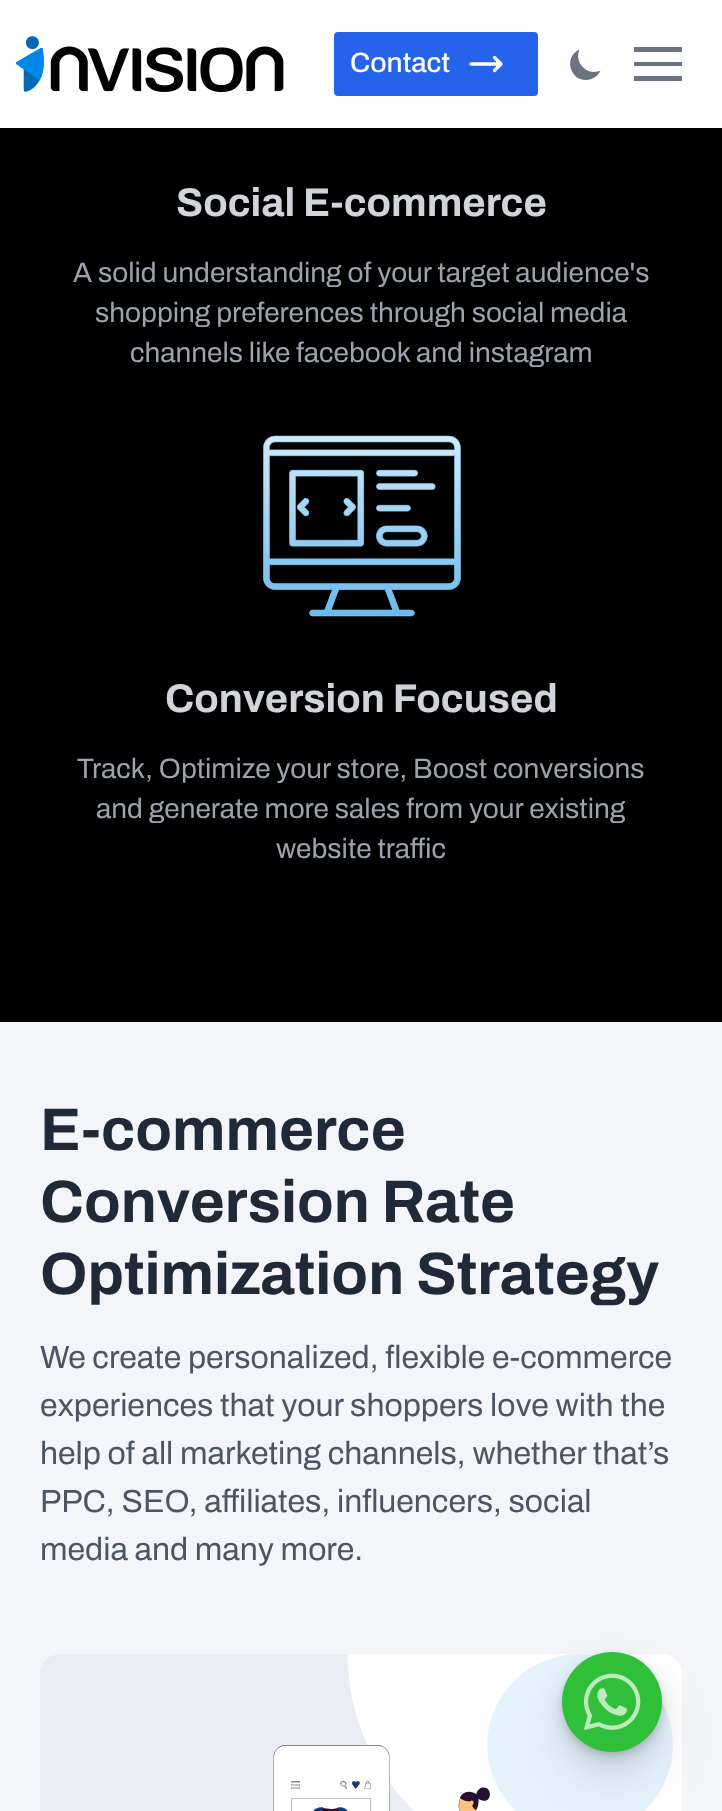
<svg xmlns="http://www.w3.org/2000/svg" xmlns:xlink="http://www.w3.org/1999/xlink" width="722" height="1811" viewBox="0 0 722 1811">
<style>
.cls-1{font:500 28px Archivo;fill:#ffffff}
.cls-2{font:bold 40px Archivo;fill:#d1d5db}
.cls-3{font:28px Archivo;fill:#9ca3af}
.cls-4{font:bold 60px Archivo;fill:#1f2937}
.cls-5{font:32px Archivo;fill:#4b5563}
</style>
<rect width="100%" height="100%" fill="#f3f5f8"/>
<rect fill="#ffffff" x="0" y="0" width="722" height="128"/>
<image xlink:href="image0.png" x="16" y="36" width="268" height="56"/>
<rect fill="#2563eb" x="334" y="32" width="204" height="64" rx="4"/>
<path fill="none" stroke="#ffffff" stroke-width="3.3" stroke-linecap="round" stroke-linejoin="round" d="M494.5 57.5L501 64M501 64L494.5 70.5M501 64H471"/>
<path fill="#6b7280" d="M600.5 70.5C587.5 76.5 573.5 62.5 579.5 49.5C561 58 572.5 86 591.5 79C595.5 77.5 599 74.5 600.5 70.5Z"/>
<path fill="#6b7280" d="M634 47H682V52H634ZM634 62H682V66H634ZM634 76H682V81H634Z"/>
<rect fill="#000000" x="0" y="128" width="722" height="894"/>
<image xlink:href="image1.png" x="263" y="435" width="198" height="182"/>
<image xlink:href="image2.png" x="40" y="1654" width="642" height="157"/>
<rect fill="#000000" fill-opacity="0.07" filter="blur(32px)" x="562" y="1684" width="100" height="100" rx="50"/>
<rect fill="#000000" fill-opacity="0.07" filter="blur(16px)" x="562" y="1668" width="100" height="100" rx="50"/>
<rect fill="#000000" fill-opacity="0.07" filter="blur(8px)" x="562" y="1660" width="100" height="100" rx="50"/>
<rect fill="#000000" fill-opacity="0.07" filter="blur(4px)" x="562" y="1656" width="100" height="100" rx="50"/>
<rect fill="#000000" fill-opacity="0.07" filter="blur(2px)" x="562" y="1654" width="100" height="100" rx="50"/>
<circle fill="#30bf39" cx="612" cy="1702" r="50"/>
<image xlink:href="image3.png" x="583" y="1673" width="58" height="57"/>
<text class="cls-1" x="350" y="72">Contact</text>
<text class="cls-2" x="176" y="216">Social E-commerce</text>
<text class="cls-3" x="73" y="282">A solid understanding of your target audience's</text>
<text class="cls-3" x="95" y="322">shopping preferences through social media</text>
<text class="cls-3" x="130" y="362">channels like facebook and instagram</text>
<text class="cls-2" x="165" y="712">Conversion Focused</text>
<text class="cls-3" x="77" y="778">Track, Optimize your store, Boost conversions</text>
<text class="cls-3" x="96" y="818">and generate more sales from your existing</text>
<text class="cls-3" x="276" y="858">website traffic</text>
<text class="cls-4"><tspan x="40" y="1150">E-commerce</tspan><tspan x="40" y="1222">Conversion Rate</tspan><tspan x="40" y="1294">Optimization Strategy</tspan></text>
<text class="cls-5"><tspan x="40" y="1368">We create personalized, flexible e-commerce</tspan><tspan x="40" y="1416">experiences that your shoppers love with the</tspan><tspan x="40" y="1464">help of all marketing channels, whether that’s</tspan><tspan x="40" y="1512">PPC, SEO, affiliates, influencers, social</tspan><tspan x="40" y="1560">media and many more.</tspan></text>
</svg>
